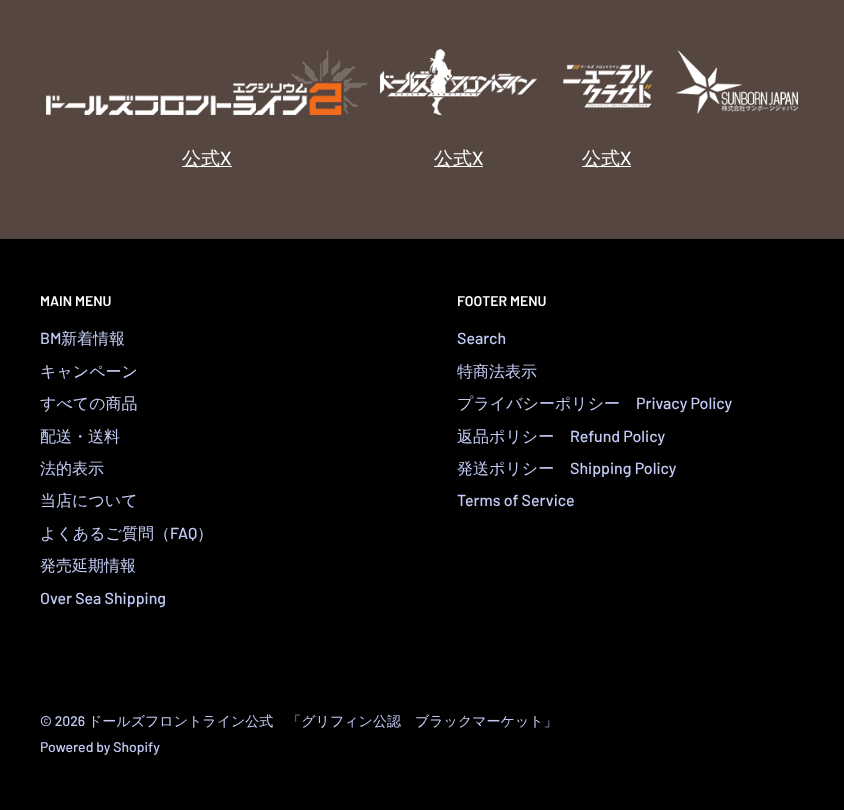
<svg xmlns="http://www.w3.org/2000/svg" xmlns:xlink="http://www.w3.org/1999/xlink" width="844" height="810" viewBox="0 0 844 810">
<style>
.cls-1{font:500 19px WenQuanYi Zen Hei;fill:#ffffff}
.cls-2{font:500 19px Barlow;fill:#ffffff}
.cls-3{font:600 14px Barlow;fill:#ffffff}
.cls-4{font:500 16px Barlow;fill:#c3cbf5}
.cls-5{font:500 16px WenQuanYi Zen Hei;fill:#c3cbf5}
.cls-6{font:500 14px Barlow;fill:#c3cbf5}
.cls-7{font:500 14px WenQuanYi Zen Hei;fill:#c3cbf5}
</style>
<rect width="100%" height="100%" fill="#55463f"/>
<image xlink:href="image0.png" x="46" y="50" width="322" height="65"/>
<image xlink:href="image1.png" x="380" y="49" width="157" height="66"/>
<image xlink:href="image2.png" x="563" y="64" width="91" height="44"/>
<image xlink:href="image3.png" x="676" y="50" width="122" height="64"/>
<rect fill="#ffffff" x="182" y="166" width="50" height="1"/>
<rect fill="#ffffff" x="434" y="166" width="49" height="1"/>
<rect fill="#ffffff" x="582" y="166" width="49" height="1"/>
<rect fill="#000000" x="0" y="239" width="844" height="571"/>
<text class="cls-1" x="182" y="165">公式</text>
<text class="cls-2" x="220" y="165">X</text>
<text class="cls-1" x="434" y="165">公式</text>
<text class="cls-2" x="472" y="165">X</text>
<text class="cls-1" x="582" y="165">公式</text>
<text class="cls-2" x="620" y="165">X</text>
<text class="cls-3" x="40" y="306">MAIN MENU</text>
<text class="cls-4" x="40" y="344">BM</text>
<text class="cls-5" x="61" y="344">新着情報</text>
<text class="cls-5" x="40" y="377">キャンペーン</text>
<text class="cls-5" x="40" y="409">すべての商品</text>
<text class="cls-5" x="40" y="442">配送・送料</text>
<text class="cls-5" x="40" y="474">法的表示</text>
<text class="cls-5" x="40" y="506">当店について</text>
<text class="cls-5" x="40" y="539">よくあるご質問（</text>
<text class="cls-4" x="170" y="539">FAQ</text>
<text class="cls-5" x="197" y="539">）</text>
<text class="cls-5" x="40" y="571">発売延期情報</text>
<text class="cls-4" x="40" y="604">Over Sea Shipping</text>
<text class="cls-3" x="457" y="306">FOOTER MENU</text>
<text class="cls-4" x="457" y="344">Search</text>
<text class="cls-5" x="457" y="377">特商法表示</text>
<text class="cls-5" x="457" y="409">プライバシーポリシー</text>
<text class="cls-4" x="636" y="409">Privacy Policy</text>
<text class="cls-5" x="457" y="442">返品ポリシー</text>
<text class="cls-4" x="570" y="442">Refund Policy</text>
<text class="cls-5" x="457" y="474">発送ポリシー</text>
<text class="cls-4" x="570" y="474">Shipping Policy</text>
<text class="cls-4" x="457" y="506">Terms of Service</text>
<text class="cls-6" x="40" y="726">© 2026</text>
<text class="cls-7" x="88" y="726">ドールズフロントライン公式　「グリフィン公認　ブラックマーケット」</text>
<text class="cls-6" x="40" y="752">Powered by Shopify</text>
</svg>
